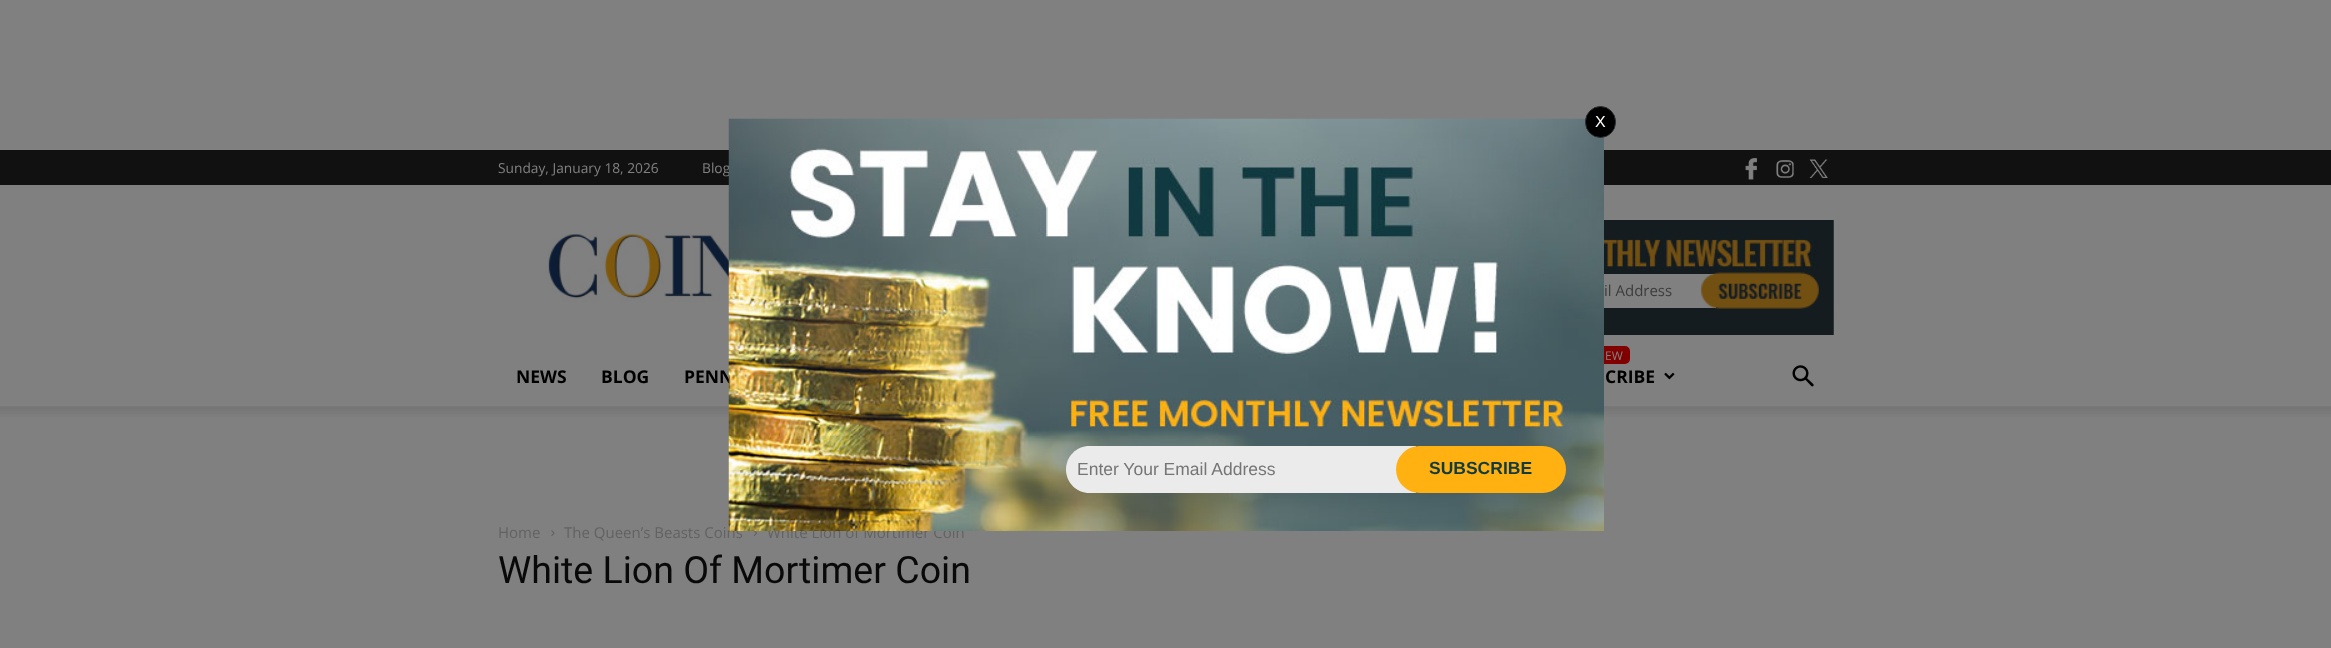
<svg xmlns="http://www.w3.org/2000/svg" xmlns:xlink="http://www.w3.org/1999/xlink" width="2331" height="648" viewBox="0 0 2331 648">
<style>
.cls-1{font:13.75px Open Sans;fill:#808080}
.cls-2{font:15px Open Sans;fill:#3b3b3b}
.cls-3{font:bold 17.5px Open Sans;fill:#000000}
.cls-4{font:12px Open Sans;fill:#808080}
.cls-5{font:15px Open Sans;fill:#626262}
.cls-6{font:16px Liberation Sans;fill:#ffffff}
.cls-7{font:bold 17.5px Liberation Sans;fill:#113a41}
.cls-8{font:17.5px Liberation Sans;fill:#757575}
.cls-9{font:37.5px Roboto;fill:#090909}
</style>
<rect width="100%" height="100%" fill="#808080"/>
<rect fill="#111111" x="0" y="150" width="2331" height="35"/>
<image xlink:href="image1.png" x="1745" y="158" width="12" height="22"/>
<image xlink:href="image2.png" x="1776" y="160" width="18" height="18"/>
<image xlink:href="image3.png" x="1809" y="159" width="19" height="19"/>
<image xlink:href="image4.png" x="548" y="234" width="181" height="86"/>
<image xlink:href="image5.png" x="1604" y="220" width="230" height="115"/>
<rect fill="#808080" x="1604" y="274" width="112" height="34"/>
<image xlink:href="image6.png" x="1700" y="272" width="119" height="37"/>
<rect fill="#800000" x="1589" y="346" width="41" height="18" rx="5"/>
<image xlink:href="image7.png" x="1664" y="372" width="11" height="8"/>
<image xlink:href="image8.png" x="1792" y="365" width="22" height="22"/>
<image xlink:href="image9.png" x="0" y="406" width="2331" height="11"/>
<image xlink:href="image10.png" x="551" y="530" width="4" height="6"/>
<image xlink:href="image11.png" x="753" y="531" width="4" height="5"/>
<text class="cls-1" x="498" y="173">Sunday, January 18, 2026</text>
<text class="cls-1" x="702" y="173">Blog</text>
<text class="cls-2" x="1604" y="296">il Address</text>
<text class="cls-3" x="516" y="383">NEWS</text>
<text class="cls-3" x="601" y="383">BLOG</text>
<text class="cls-3" x="684" y="383">PENN</text>
<text class="cls-4" x="1605" y="360">EW</text>
<text class="cls-3" x="1605" y="383">CRIBE</text>
<text class="cls-5" x="498" y="538">Home</text>
<text class="cls-5" x="564" y="538">The Queen’s Beasts Coins</text>
<text class="cls-5" x="767" y="538">White Lion of Mortimer Coin</text>
<image xlink:href="image0.png" x="728" y="118" width="876" height="413"/>
<rect fill="#000000" stroke="#2b2f32" x="1585.5" y="106.5" width="30" height="31" rx="15"/>
<text class="cls-6" x="1595" y="127">X</text>
<path fill="#ebebeb" d="M1089.5 446H1416V493H1089.5C1076.5 493 1066 482.5 1066 469.5C1066 456.5 1076.5 446 1089.5 446Z"/>
<rect fill="#ffb111" x="1396" y="446" width="170" height="47" rx="23.5"/>
<text class="cls-7" x="1429" y="474">SUBSCRIBE</text>
<text class="cls-8" x="1077" y="475">Enter Your Email Address</text>
<text class="cls-9" x="498" y="583">White Lion Of Mortimer Coin</text>
</svg>
